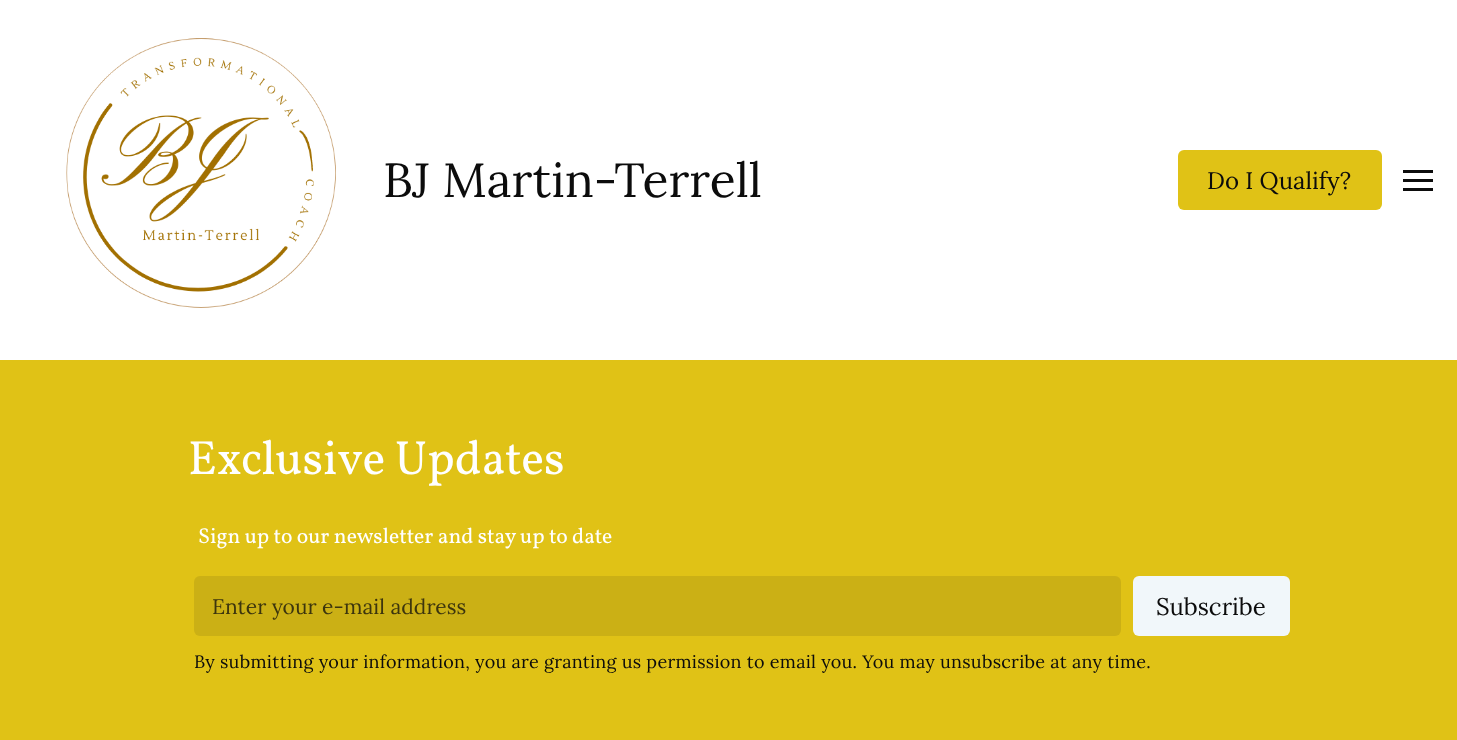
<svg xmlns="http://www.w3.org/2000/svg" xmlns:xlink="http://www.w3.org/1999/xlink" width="1457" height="740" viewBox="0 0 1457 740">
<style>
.cls-1{font:48px Lora;fill:#0c0c0c}
.cls-2{font:24px Lora;fill:#0c0c0c}
.cls-3{font:48px Vollkorn;fill:#ffffff}
.cls-4{font:21.6px Vollkorn;fill:#ffffff}
.cls-5{font:21px Lora;fill:#3c350e}
.cls-6{font:18px Lora;letter-spacing:0.27px;fill:#0c0c0c}
</style>
<rect width="100%" height="100%" fill="#ffffff"/>
<image xlink:href="image0.png" x="66" y="38" width="270" height="270"/>
<rect fill="#e0c216" x="1178" y="150" width="204" height="60" rx="6"/>
<rect fill="#0c0c0c" x="1403" y="170" width="30" height="3"/>
<rect fill="#0c0c0c" x="1403" y="179" width="30" height="3"/>
<rect fill="#0c0c0c" x="1403" y="188" width="30" height="3"/>
<rect fill="#e0c216" x="0" y="360" width="1457" height="380"/>
<rect fill="#cbb015" x="194" y="576" width="927" height="60" rx="6"/>
<rect fill="#f1f7fa" x="1133" y="576" width="157" height="60" rx="6"/>
<text class="cls-1" x="383" y="197">BJ Martin-Terrell</text>
<text class="cls-2" x="1207" y="189">Do I Qualify?</text>
<text class="cls-3" x="188" y="474">Exclusive Updates</text>
<text class="cls-4" x="198" y="543">Sign up to our newsletter and stay up to date</text>
<text class="cls-5" x="212" y="614">Enter your e-mail address</text>
<text class="cls-2" x="1156" y="615">Subscribe</text>
<text class="cls-6" x="194" y="668">By submitting your information, you are granting us permission to email you. You may unsubscribe at any time.</text>
</svg>
